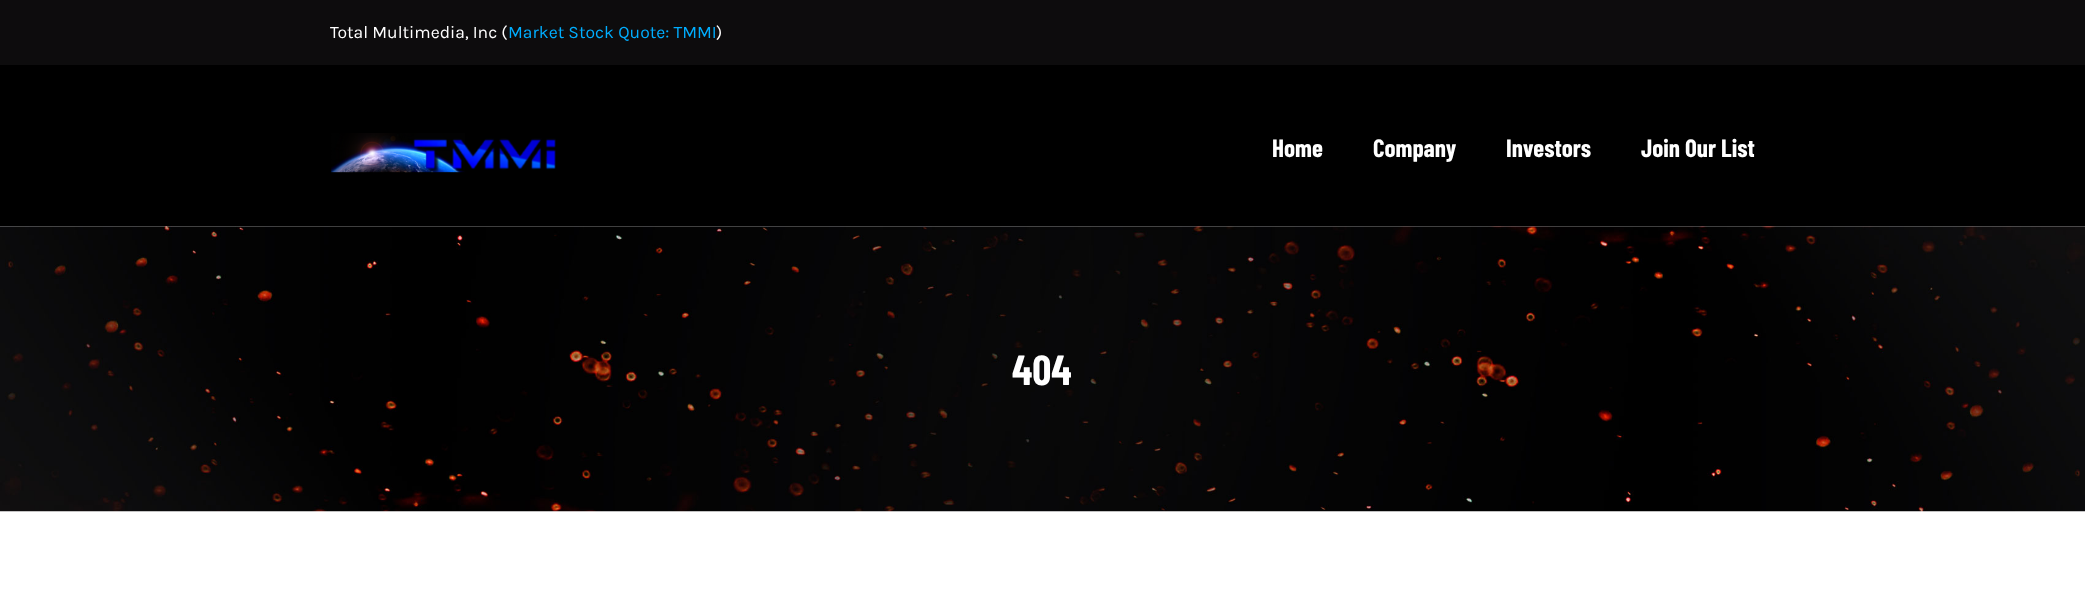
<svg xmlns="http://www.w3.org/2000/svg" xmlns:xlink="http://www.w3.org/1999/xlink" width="2085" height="594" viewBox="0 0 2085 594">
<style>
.cls-1{font:17.5px Karla;fill:#ffffff}
.cls-2{font:17.5px Karla;fill:#00aeff}
.cls-3{font:bold 25px Barlow Condensed;fill:#ffffff}
.cls-4{font:bold 42px Barlow Condensed;fill:#ffffff}
</style>
<rect width="100%" height="100%" fill="#ffffff"/>
<rect fill="#0d0c0d" x="0" y="0" width="2085" height="65"/>
<rect fill="#000000" x="0" y="65" width="2085" height="161"/>
<image xlink:href="image0.png" x="331" y="133" width="225" height="40"/>
<image xlink:href="image1.png" x="0" y="226" width="2085" height="286"/>
<text class="cls-1" x="330" y="38">Total Multimedia, Inc (</text>
<text class="cls-2" x="508" y="38">Market Stock Quote: TMMI</text>
<text class="cls-1" x="716" y="38">)</text>
<text class="cls-3" x="1272" y="157">Home</text>
<text class="cls-3" x="1373" y="157">Company</text>
<text class="cls-3" x="1506" y="157">Investors</text>
<text class="cls-3" x="1641" y="157">Join Our List</text>
<text class="cls-4" x="1012" y="385">404</text>
</svg>
